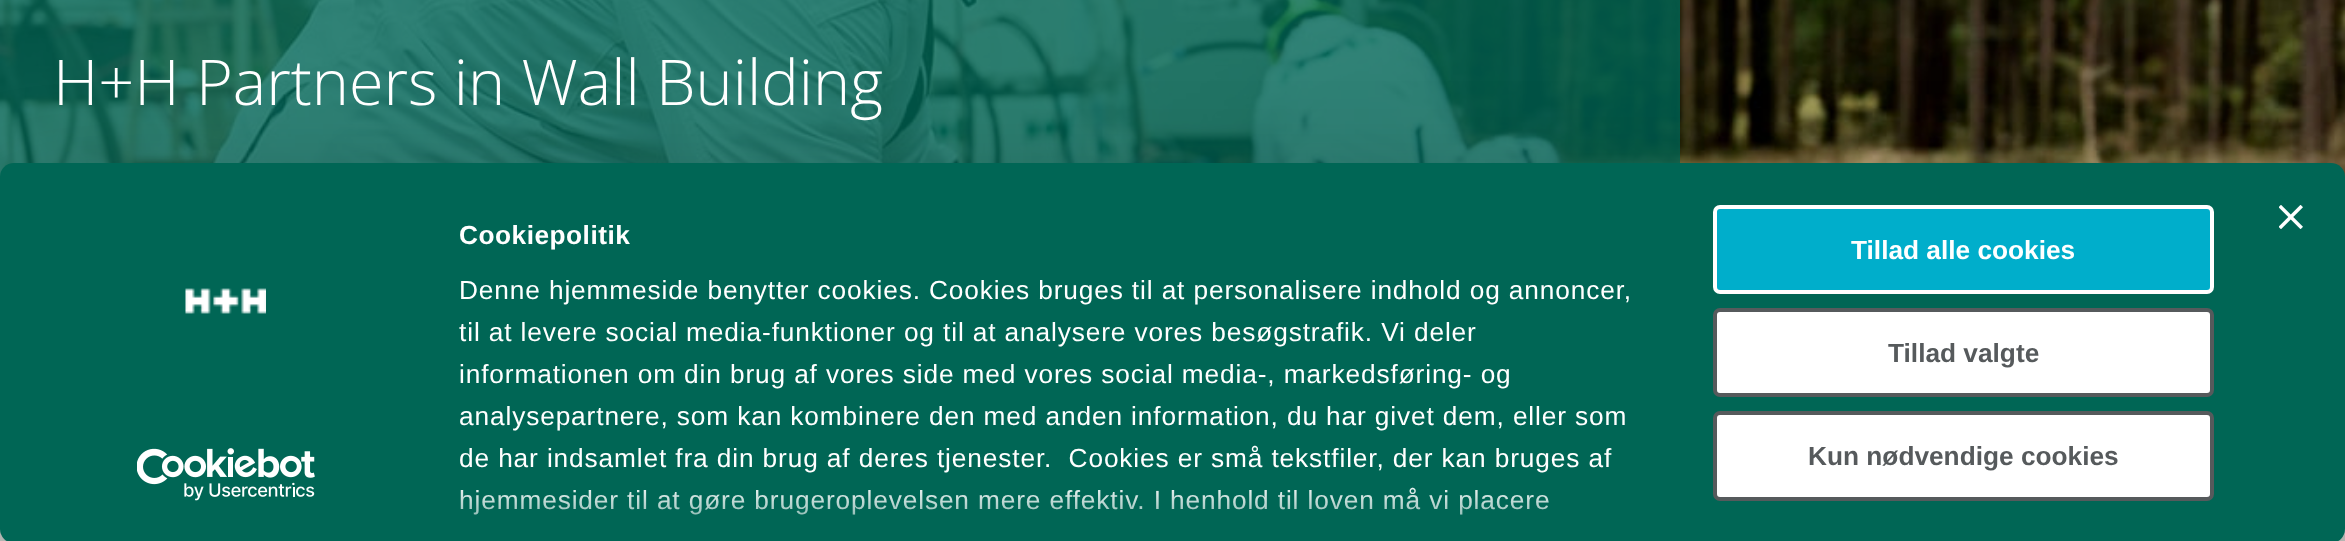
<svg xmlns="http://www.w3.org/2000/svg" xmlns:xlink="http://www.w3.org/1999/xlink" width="2345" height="541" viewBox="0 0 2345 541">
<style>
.cls-1{font:300 63px Open Sans;fill:#ffffff}
.cls-2{font:bold 26.25px Liberation Sans;letter-spacing:0.5px;fill:#ffffff}
.cls-3{font:26.25px Liberation Sans;letter-spacing:0.88px;fill:#ffffff}
.cls-4{font:bold 26.25px Liberation Sans;fill:#ffffff}
.cls-5{font:bold 26.25px Liberation Sans;fill:#565a5c}
</style>
<defs>
<linearGradient id="g1" gradientUnits="userSpaceOnUse" x1="1044" y1="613" x2="1044" y2="481"><stop offset="0" stop-color="#006655"/><stop offset="0.5" stop-color="#006655" stop-opacity="0.8"/><stop offset="1" stop-color="#006655" stop-opacity="0"/></linearGradient>
</defs>
<rect width="100%" height="100%" fill="#cdcfcb"/>
<image xlink:href="image0.png" x="0" y="0" width="2345" height="177"/>
<rect fill="#006656" fill-opacity="0.8" x="0" y="0" width="1680" height="177"/>
<rect fill="#000000" fill-opacity="0.3" filter="blur(61px)" x="0" y="215" width="2345" height="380" rx="14"/>
<rect fill="#006655" x="0" y="163" width="2345" height="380" rx="14"/>
<image xlink:href="image1.png" x="2279" y="205" width="24" height="24"/>
<image xlink:href="image2.png" x="185" y="288" width="81" height="26"/>
<image xlink:href="image3.png" x="137" y="448" width="178" height="53"/>
<rect fill="#00aecb" stroke="#ffffff" stroke-width="4" x="1715" y="207" width="497" height="85" rx="5"/>
<rect fill="#ffffff" stroke="#565a5c" stroke-width="4" x="1715" y="310" width="497" height="85" rx="5"/>
<rect fill="#ffffff" stroke="#565a5c" stroke-width="4" x="1715" y="413" width="497" height="86" rx="5"/>
<text class="cls-1" x="53" y="105">H+H Partners in Wall Building</text>
<text class="cls-2" x="459" y="244">Cookiepolitik</text>
<text class="cls-3" xml:space="preserve"><tspan x="459" y="299">Denne hjemmeside benytter cookies. Cookies bruges til at personalisere indhold og annoncer,</tspan><tspan x="459" y="341">til at levere social media-funktioner og til at analysere vores besøgstrafik. Vi deler</tspan><tspan x="459" y="383">informationen om din brug af vores side med vores social media-, markedsføring- og</tspan><tspan x="459" y="425">analysepartnere, som kan kombinere den med anden information, du har givet dem, eller som</tspan><tspan x="459" y="467">de har indsamlet fra din brug af deres tjenester.  Cookies er små tekstfiler, der kan bruges af</tspan><tspan x="459" y="509">hjemmesider til at gøre brugeroplevelsen mere effektiv. I henhold til loven må vi placere</tspan></text>
<rect fill="url(#g1)" x="460" y="488" width="1088" height="27"/>
<text class="cls-4" x="1851" y="259">Tillad alle cookies</text>
<text class="cls-5" x="1888" y="362">Tillad valgte</text>
<text class="cls-5" x="1808" y="465">Kun nødvendige cookies</text>
</svg>
